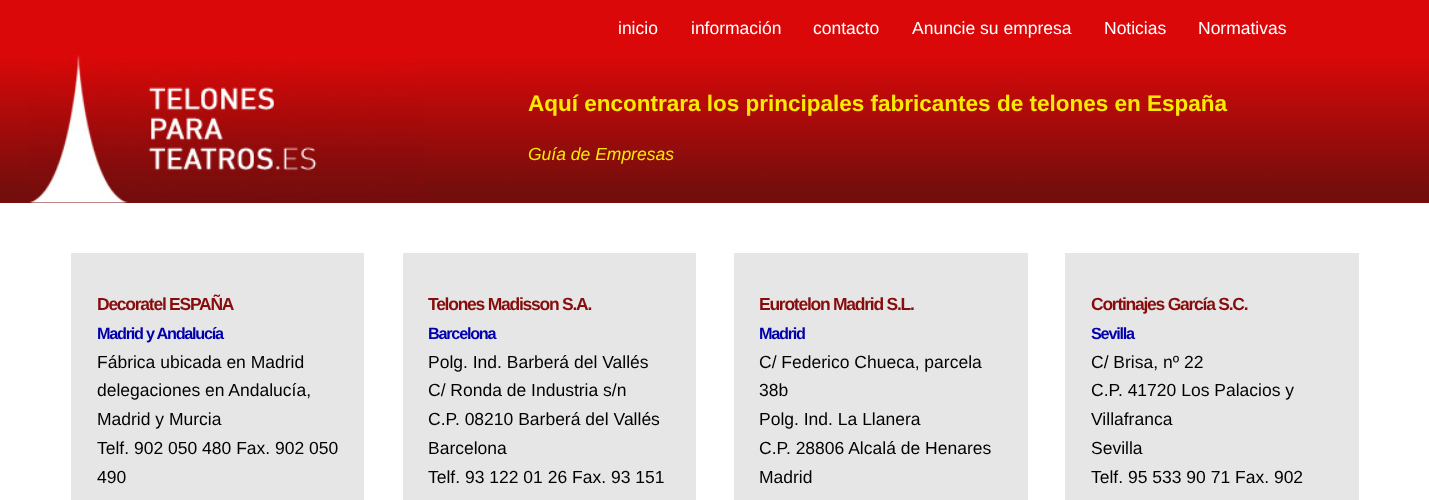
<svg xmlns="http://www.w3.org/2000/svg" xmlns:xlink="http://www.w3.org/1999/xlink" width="1429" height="500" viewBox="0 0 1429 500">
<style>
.cls-1{font:17.5px Liberation Sans;fill:#ffffff}
.cls-2{font:bold 22.5px Liberation Sans;fill:#f8ea02}
.cls-3{font:italic 17.5px Liberation Sans;fill:#f8ea02}
.cls-4{font:bold 17.5px Liberation Sans;letter-spacing:-1.25px;fill:#860d0c}
.cls-5{font:bold 16.25px Liberation Sans;letter-spacing:-1.25px;fill:#0000ad}
.cls-6{font:17.5px Liberation Sans;fill:#000000}
</style>
<defs>
<linearGradient id="g1" gradientUnits="userSpaceOnUse" x1="715" y1="55" x2="715" y2="203"><stop offset="0" stop-color="#da0809"/><stop offset="0.91" stop-color="#740e0c"/></linearGradient>
</defs>
<rect width="100%" height="100%" fill="#da0809"/>
<rect fill="#ffffff" x="0" y="203" width="1429" height="297"/>
<rect fill="url(#g1)" x="0" y="58" width="1429" height="145"/>
<image xlink:href="image0.png" x="29" y="55" width="394" height="148"/>
<rect fill="#e7e6e6" x="71" y="253" width="293" height="247"/>
<rect fill="#e7e6e6" x="403" y="253" width="293" height="247"/>
<rect fill="#e7e6e6" x="734" y="253" width="294" height="247"/>
<rect fill="#e7e6e6" x="1065" y="253" width="294" height="247"/>
<text class="cls-1" x="618" y="34">inicio</text>
<text class="cls-1" x="691" y="34">información</text>
<text class="cls-1" x="813" y="34">contacto</text>
<text class="cls-1" x="912" y="34">Anuncie su empresa</text>
<text class="cls-1" x="1104" y="34">Noticias</text>
<text class="cls-1" x="1198" y="34">Normativas</text>
<text class="cls-2" x="528" y="111">Aquí encontrara los principales fabricantes de telones en España</text>
<text class="cls-3" x="528" y="160">Guía de Empresas</text>
<text class="cls-4" x="97" y="310">Decoratel ESPAÑA</text>
<text class="cls-5" x="97" y="339">Madrid y Andalucía</text>
<text class="cls-6"><tspan x="97" y="368">Fábrica ubicada en Madrid</tspan><tspan x="97" y="396">delegaciones en Andalucía,</tspan><tspan x="97" y="425">Madrid y Murcia</tspan><tspan x="97" y="454">Telf. 902 050 480 Fax. 902 050</tspan><tspan x="97" y="483">490</tspan></text>
<text class="cls-4" x="428" y="310">Telones Madisson S.A.</text>
<text class="cls-5" x="428" y="339">Barcelona</text>
<text class="cls-6"><tspan x="428" y="368">Polg. Ind. Barberá del Vallés</tspan><tspan x="428" y="396">C/ Ronda de Industria s/n</tspan><tspan x="428" y="425">C.P. 08210 Barberá del Vallés</tspan><tspan x="428" y="454">Barcelona</tspan><tspan x="428" y="483">Telf. 93 122 01 26 Fax. 93 151</tspan></text>
<text class="cls-4" x="759" y="310">Eurotelon Madrid S.L.</text>
<text class="cls-5" x="759" y="339">Madrid</text>
<text class="cls-6"><tspan x="759" y="368">C/ Federico Chueca, parcela</tspan><tspan x="759" y="396">38b</tspan><tspan x="759" y="425">Polg. Ind. La Llanera</tspan><tspan x="759" y="454">C.P. 28806 Alcalá de Henares</tspan><tspan x="759" y="483">Madrid</tspan></text>
<text class="cls-4" x="1091" y="310">Cortinajes García S.C.</text>
<text class="cls-5" x="1091" y="339">Sevilla</text>
<text class="cls-6"><tspan x="1091" y="368">C/ Brisa, nº 22</tspan><tspan x="1091" y="396">C.P. 41720 Los Palacios y</tspan><tspan x="1091" y="425">Villafranca</tspan><tspan x="1091" y="454">Sevilla</tspan><tspan x="1091" y="483">Telf. 95 533 90 71 Fax. 902</tspan></text>
</svg>
